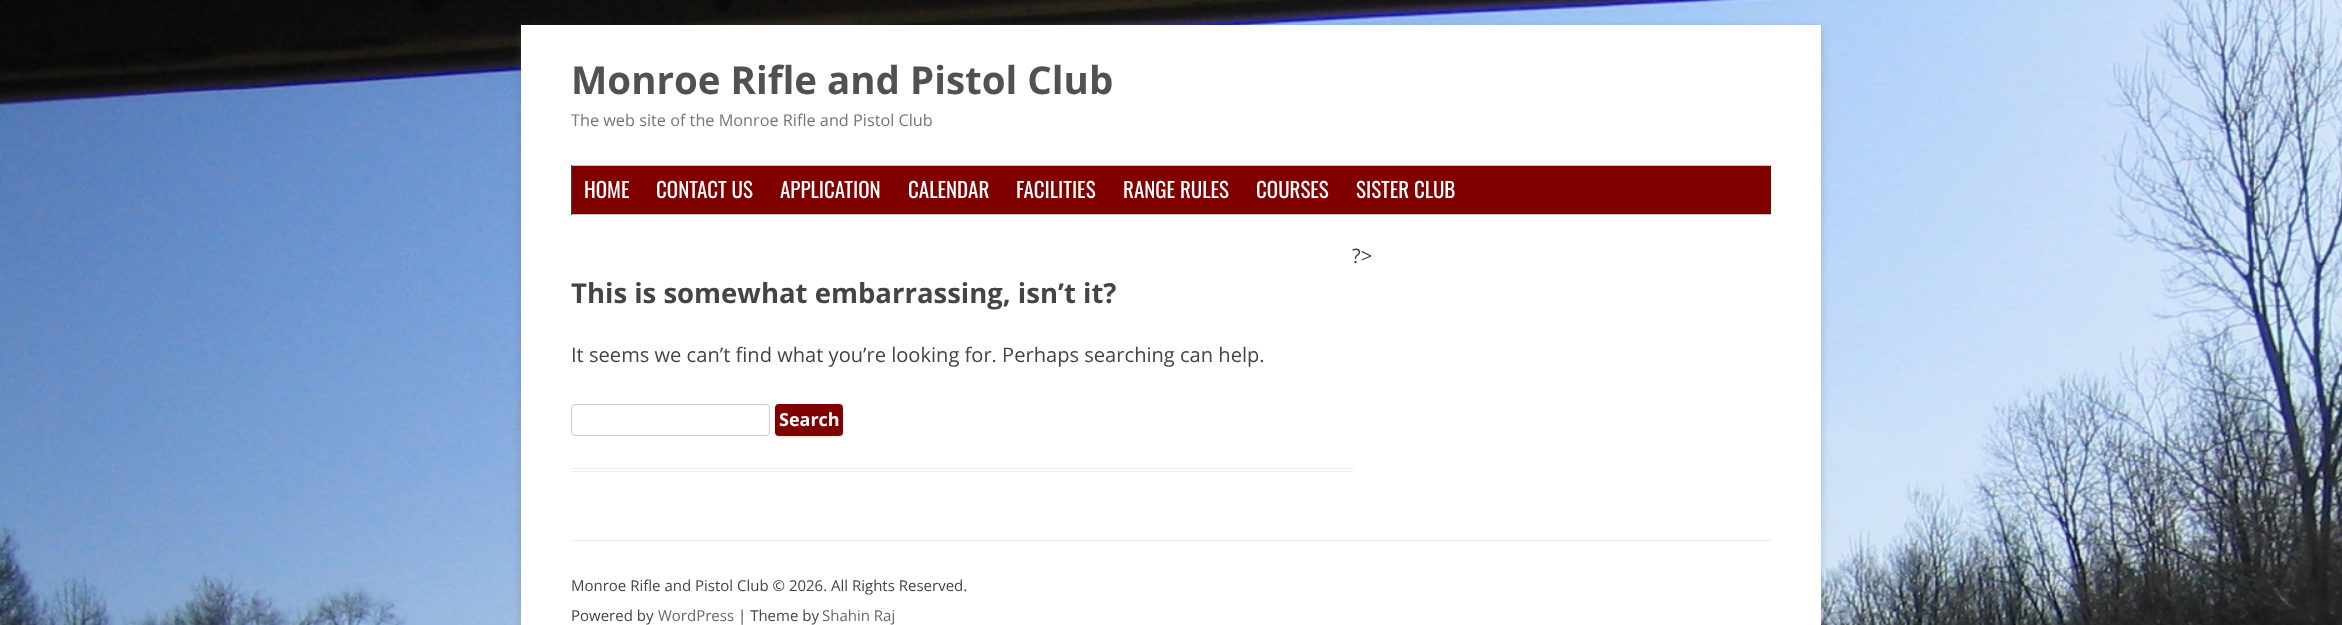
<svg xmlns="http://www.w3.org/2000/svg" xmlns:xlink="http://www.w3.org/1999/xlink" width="2342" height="625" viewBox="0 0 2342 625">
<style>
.cls-1{font:bold 38.5px Open Sans;fill:#515151}
.cls-2{font:16.25px Open Sans;fill:#757575}
.cls-3{font:21px Oswald;fill:#ffffff}
.cls-4{font:20.1px Open Sans;fill:#444444}
.cls-5{font:bold 27.5px Open Sans;fill:#444444}
.cls-6{font:bold 18px Open Sans;fill:#ffffff}
.cls-7{font:15px Open Sans;fill:#444444}
.cls-8{font:15px Open Sans;fill:#686868}
</style>
<rect width="100%" height="100%" fill="#ffffff"/>
<image xlink:href="image0.png" x="0" y="0" width="2342" height="625"/>
<rect fill="#646464" fill-opacity="0.3" filter="blur(4px)" x="521" y="28" width="1300" height="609"/>
<rect fill="#ffffff" x="521" y="25" width="1300" height="600"/>
<rect fill="#800000" x="572" y="166" width="1199" height="48"/>
<rect fill="#c0c0c0" x="571" y="165" width="1200" height="1"/>
<rect fill="#c0c0c0" x="571" y="214" width="1200" height="1"/>
<rect fill="#444444" x="571" y="165" width="1" height="50"/>
<rect fill="#ededed" x="571" y="468" width="782" height="1"/>
<rect fill="#ededed" x="571" y="471" width="782" height="1"/>
<rect fill="none" stroke="#cccccc" x="571.5" y="404.5" width="198" height="31" rx="3.5"/>
<rect fill="#404040" fill-opacity="0.1" filter="blur(1px)" x="775" y="405" width="68" height="33" rx="4"/>
<rect fill="#800000" x="775" y="404" width="68" height="32" rx="4"/>
<rect fill="#ededed" x="571" y="540" width="1200" height="1"/>
<text class="cls-1" x="571" y="94">Monroe Rifle and Pistol Club</text>
<text class="cls-2" x="571" y="126">The web site of the Monroe Rifle and Pistol Club</text>
<text class="cls-3" x="584" y="198">HOME</text>
<text class="cls-3" x="656" y="198">CONTACT US</text>
<text class="cls-3" x="780" y="198">APPLICATION</text>
<text class="cls-3" x="908" y="198">CALENDAR</text>
<text class="cls-3" x="1016" y="198">FACILITIES</text>
<text class="cls-3" x="1123" y="198">RANGE RULES</text>
<text class="cls-3" x="1256" y="198">COURSES</text>
<text class="cls-3" x="1356" y="198">SISTER CLUB</text>
<text class="cls-4" x="1352" y="263">?&gt;</text>
<text class="cls-5" x="571" y="303">This is somewhat embarrassing, isn’t it?</text>
<text class="cls-4" x="571" y="362">It seems we can’t find what you’re looking for. Perhaps searching can help.</text>
<text class="cls-6" x="779" y="426">Search</text>
<text class="cls-7" x="571" y="591">Monroe Rifle and Pistol Club © 2026. All Rights Reserved.</text>
<text class="cls-7" x="571" y="621">Powered by</text>
<text class="cls-8" x="658" y="621">WordPress</text>
<text class="cls-7" x="738" y="621">| Theme by</text>
<text class="cls-8" x="822" y="621">Shahin Raj</text>
</svg>
